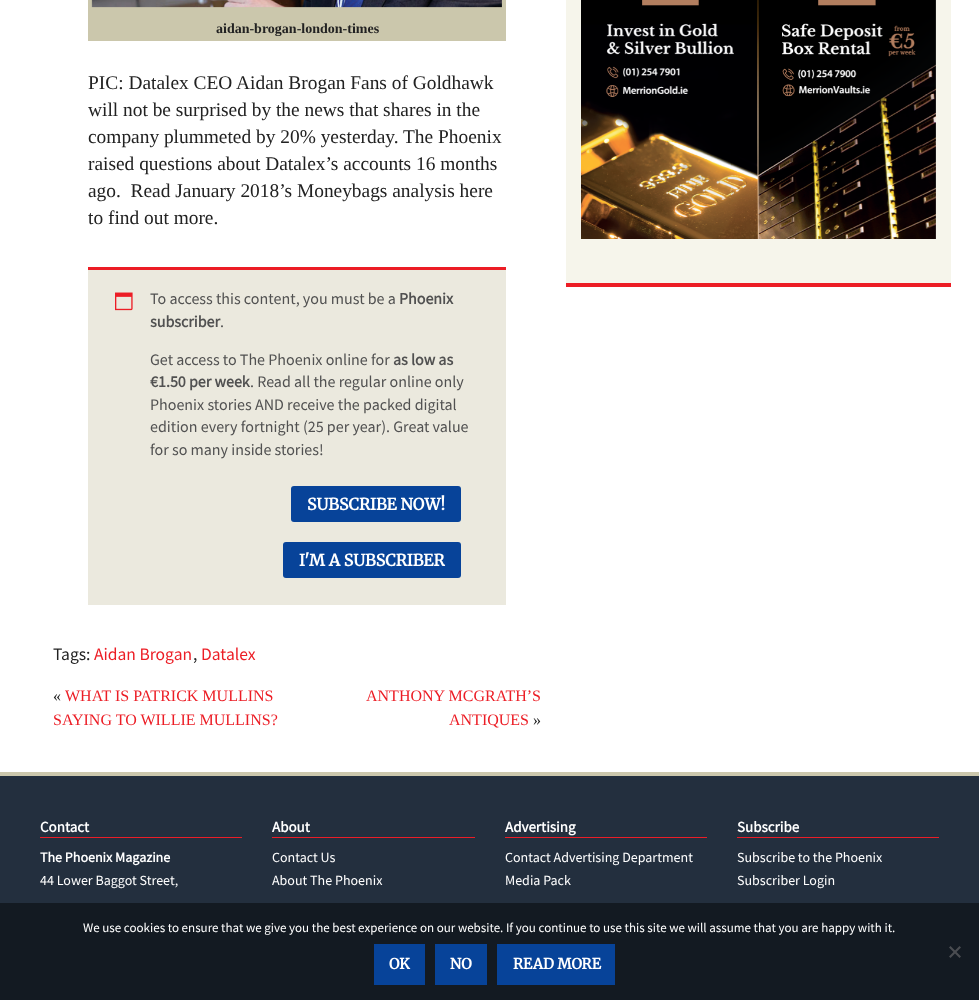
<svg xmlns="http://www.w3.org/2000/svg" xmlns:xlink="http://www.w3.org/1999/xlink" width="979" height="1000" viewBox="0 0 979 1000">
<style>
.cls-1{font:bold 14px Liberation Serif;fill:#222222}
.cls-2{font:19.4px Liberation Serif;fill:#222222}
.cls-3{font:16px Source Sans Pro;fill:#515151}
.cls-4{font:bold 16px Source Sans Pro;fill:#515151}
.cls-5{font:bold 16px Merriweather;fill:#ffffff}
.cls-6{font:17.5px Source Sans Pro;fill:#222222}
.cls-7{font:17.5px Source Sans Pro;fill:#ec1d25}
.cls-8{font:16px Liberation Serif;fill:#222222}
.cls-9{font:16px Liberation Serif;fill:#ec1d25}
.cls-10{font:bold 15px Source Sans Pro;fill:#ffffff}
.cls-11{font:bold 14px Source Sans Pro;fill:#ffffff}
.cls-12{font:14px Source Sans Pro;fill:#ffffff}
.cls-13{font:13px Source Sans Pro;fill:#ffffff}
.cls-14{font:bold 14.5px Merriweather;fill:#ffffff}
</style>
<rect width="100%" height="100%" fill="#232f3e"/>
<rect fill="#ffffff" x="0" y="0" width="979" height="772"/>
<rect fill="#cbc7ac" x="88" y="0" width="418" height="41"/>
<image xlink:href="image0.png" x="91" y="0" width="411" height="8"/>
<rect fill="#ebe9de" x="88" y="270" width="418" height="335"/>
<rect fill="#ec1d25" x="88" y="267" width="418" height="3"/>
<image xlink:href="image1.png" x="115" y="292" width="18" height="19"/>
<rect fill="#074399" x="291" y="486" width="170" height="36" rx="3"/>
<rect fill="#074399" x="283" y="542" width="178" height="36" rx="3"/>
<rect fill="#f6f5eb" x="566" y="0" width="385" height="283"/>
<rect fill="#ec1d25" x="566" y="283" width="385" height="4"/>
<image xlink:href="image2.png" x="581" y="0" width="355" height="239"/>
<rect fill="#cbc7ac" x="0" y="772" width="979" height="4"/>
<rect fill="#eb1d27" x="40" y="837" width="202" height="1"/>
<rect fill="#eb1d27" x="272" y="837" width="203" height="1"/>
<rect fill="#eb1d27" x="505" y="837" width="202" height="1"/>
<rect fill="#eb1d27" x="737" y="837" width="202" height="1"/>
<rect fill="#131a22" x="0" y="903" width="979" height="97"/>
<path fill="#4a4d51" d="M959.5 946L961 947.5L950.5 958L949 956.5Z"/>
<path fill="#4a4d51" d="M949 947.5L950.5 946L961 956.5L959.5 958Z"/>
<rect fill="#074399" x="374" y="944" width="51" height="41"/>
<rect fill="#074399" x="435" y="944" width="52" height="41"/>
<rect fill="#074399" x="497" y="944" width="118" height="41"/>
<text class="cls-1" x="216" y="33">aidan-brogan-london-times</text>
<text class="cls-2" xml:space="preserve"><tspan x="88" y="89">PIC: Datalex CEO Aidan Brogan Fans of Goldhawk</tspan><tspan x="88" y="116">will not be surprised by the news that shares in the</tspan><tspan x="88" y="143">company plummeted by 20% yesterday. The Phoenix</tspan><tspan x="88" y="170">raised questions about Datalex’s accounts 16 months</tspan><tspan x="88" y="197">ago.  Read January 2018’s Moneybags analysis here</tspan><tspan x="88" y="224">to find out more.</tspan></text>
<text class="cls-3" x="150" y="304">To access this content, you must be a</text>
<text class="cls-4" x="399" y="304">Phoenix</text>
<text class="cls-4" x="150" y="327">subscriber</text>
<text class="cls-3" x="220" y="327">.</text>
<text class="cls-3" x="150" y="365">Get access to The Phoenix online for</text>
<text class="cls-4" x="393" y="365">as low as</text>
<text class="cls-4" x="150" y="387">€1.50 per week</text>
<text class="cls-3" x="250" y="387">. Read all the regular online only</text>
<text class="cls-3"><tspan x="150" y="410">Phoenix stories AND receive the packed digital</tspan><tspan x="150" y="432">edition every fortnight (25 per year). Great value</tspan><tspan x="150" y="455">for so many inside stories!</tspan></text>
<text class="cls-5" x="307" y="510">SUBSCRIBE NOW!</text>
<text class="cls-5" x="299" y="566">I'M A SUBSCRIBER</text>
<text class="cls-6" x="53" y="660">Tags:</text>
<text class="cls-7" x="94" y="660">Aidan Brogan</text>
<text class="cls-6" x="193" y="660">,</text>
<text class="cls-7" x="201" y="660">Datalex</text>
<text class="cls-8" x="53" y="701">«</text>
<text class="cls-9" x="65" y="701">WHAT IS PATRICK MULLINS</text>
<text class="cls-9" x="53" y="725">SAYING TO WILLIE MULLINS?</text>
<text class="cls-9" x="366" y="701">ANTHONY MCGRATH’S</text>
<text class="cls-9" x="449" y="725">ANTIQUES</text>
<text class="cls-8" x="533" y="725">»</text>
<text class="cls-10" x="40" y="832">Contact</text>
<text class="cls-11" x="40" y="862">The Phoenix Magazine</text>
<text class="cls-12" x="40" y="885">44 Lower Baggot Street,</text>
<text class="cls-10" x="272" y="832">About</text>
<text class="cls-12"><tspan x="272" y="862">Contact Us</tspan><tspan x="272" y="885">About The Phoenix</tspan></text>
<text class="cls-10" x="505" y="832">Advertising</text>
<text class="cls-12"><tspan x="505" y="862">Contact Advertising Department</tspan><tspan x="505" y="885">Media Pack</tspan></text>
<text class="cls-10" x="737" y="832">Subscribe</text>
<text class="cls-12"><tspan x="737" y="862">Subscribe to the Phoenix</tspan><tspan x="737" y="885">Subscriber Login</tspan></text>
<text class="cls-13" x="83" y="932">We use cookies to ensure that we give you the best experience on our website. If you continue to use this site we will assume that you are happy with it.</text>
<text class="cls-14" x="389" y="969">OK</text>
<text class="cls-14" x="450" y="969">NO</text>
<text class="cls-14" x="513" y="969">READ MORE</text>
</svg>
